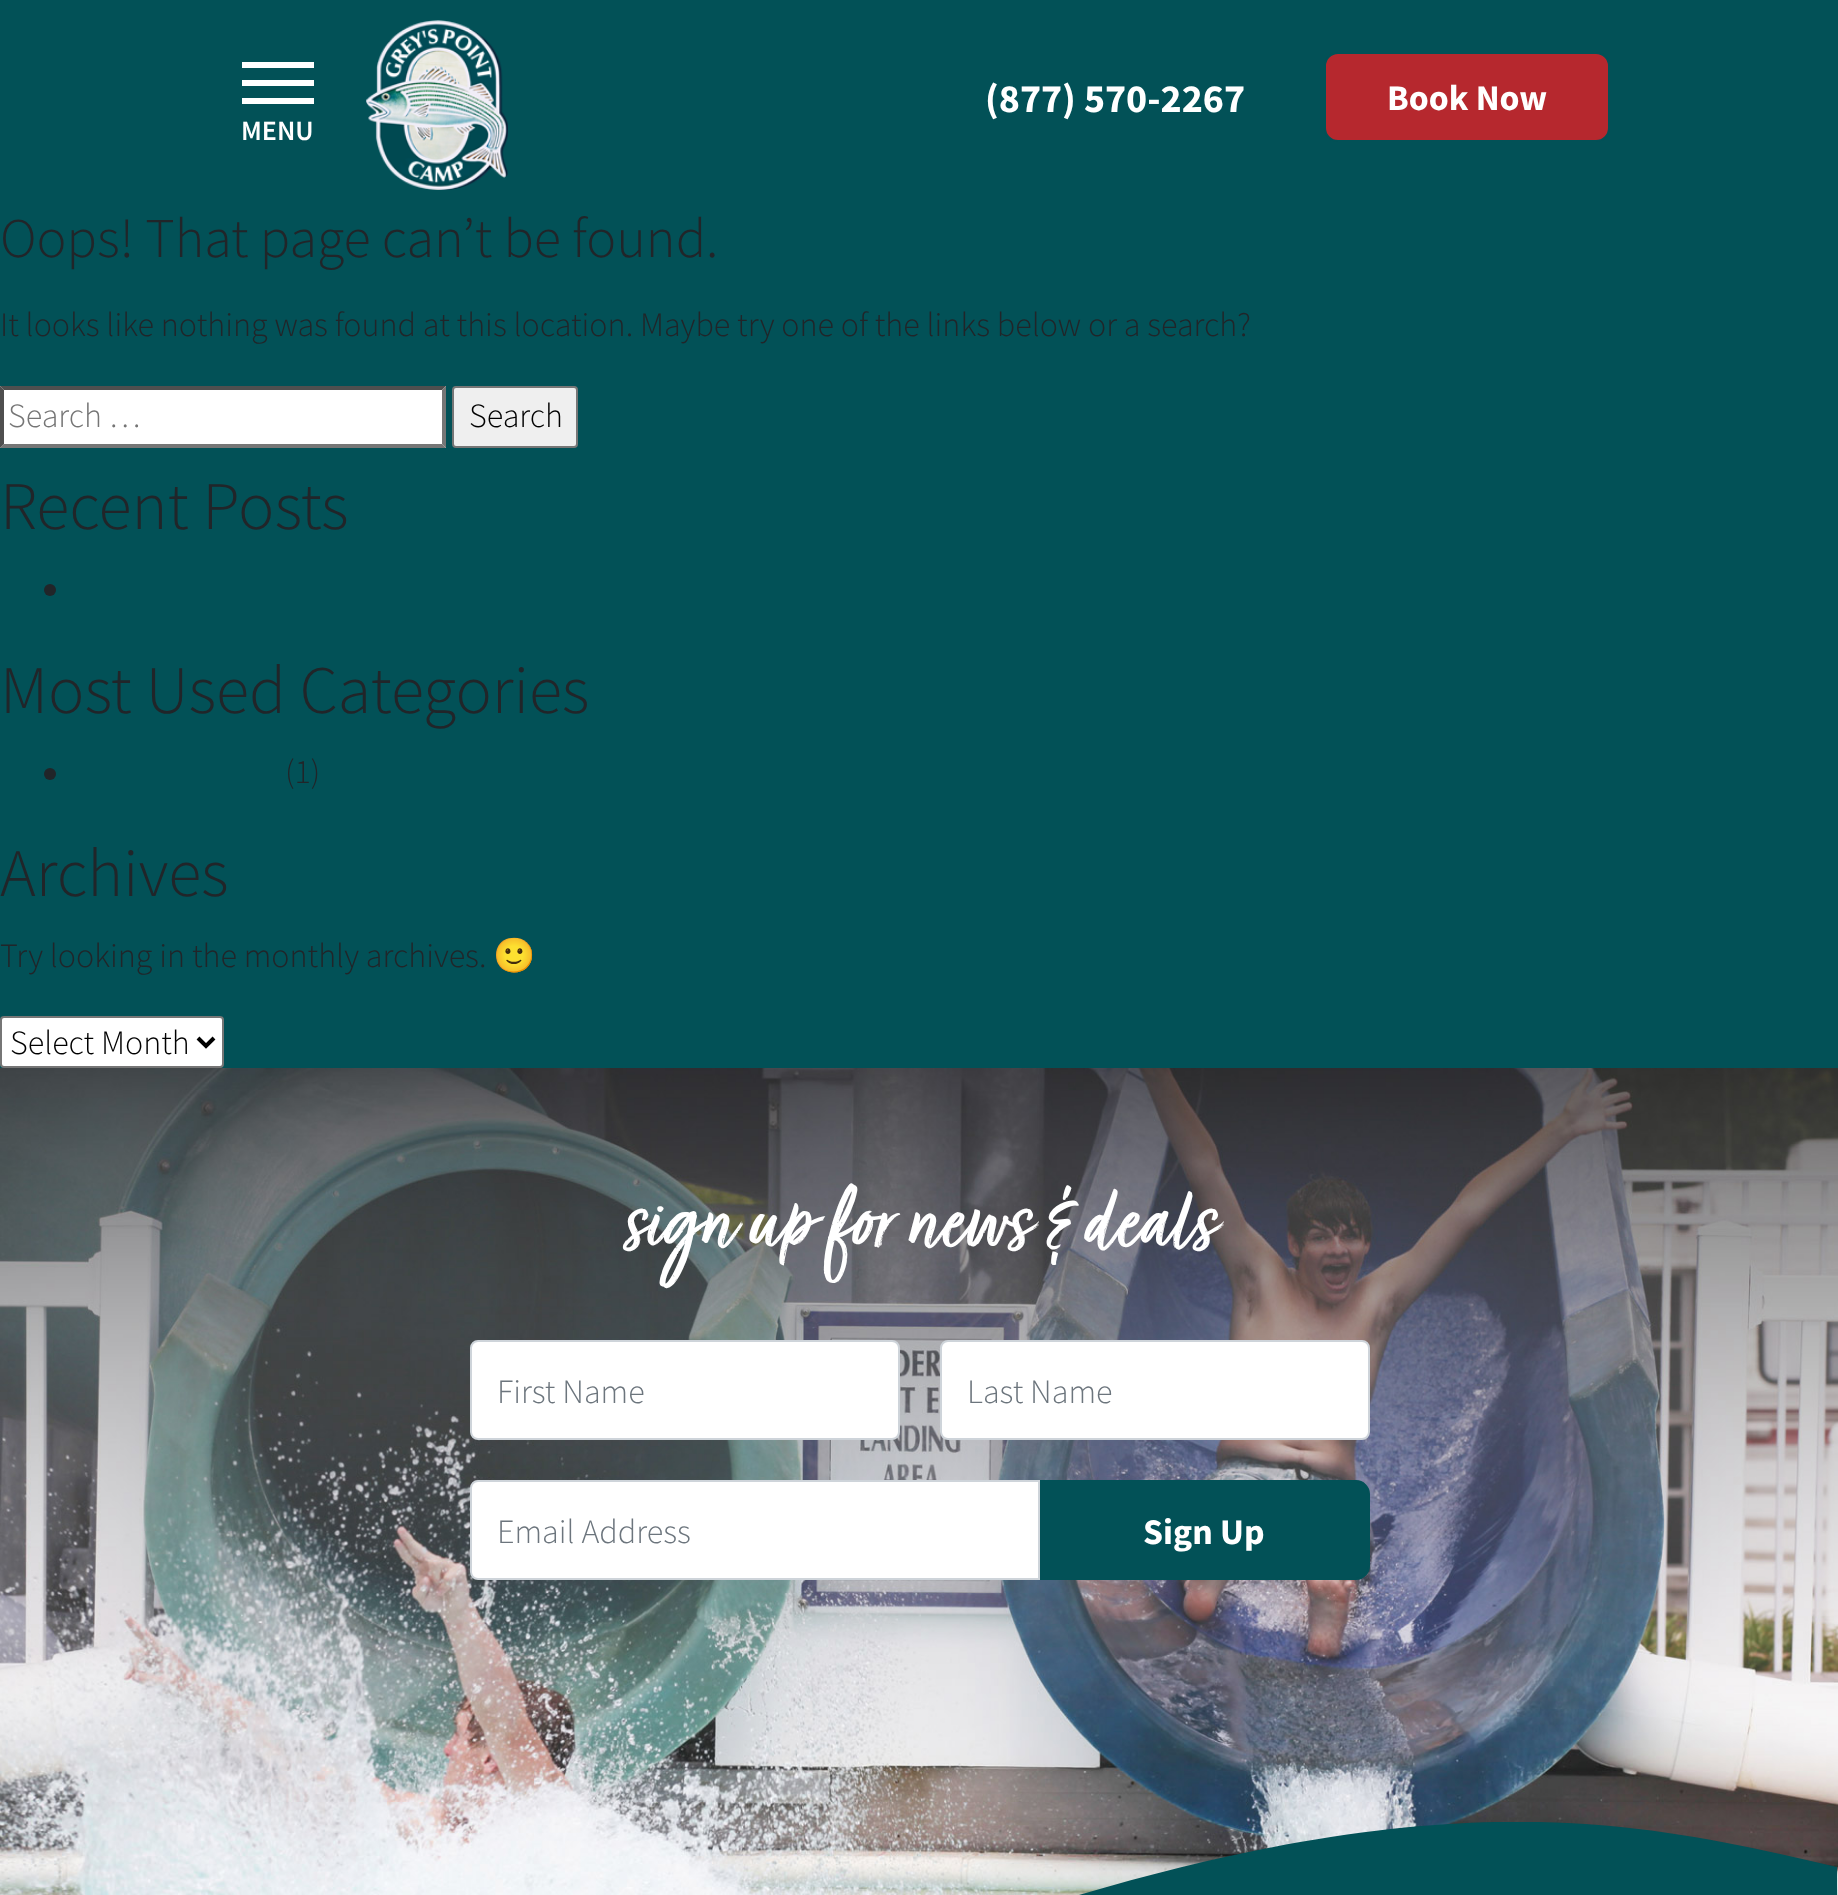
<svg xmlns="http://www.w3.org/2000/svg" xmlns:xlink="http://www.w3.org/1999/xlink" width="1838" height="1895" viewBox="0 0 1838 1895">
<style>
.cls-1{font:bold 40px Source Sans Pro;fill:#ffffff}
.cls-2{font:bold 36px Source Sans Pro;fill:#ffffff}
.cls-3{font:600 28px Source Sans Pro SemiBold;fill:#ffffff}
.cls-4{font:300 56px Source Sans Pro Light;fill:#212529}
.cls-5{font:300 34px Source Sans Pro Light;fill:#212529}
.cls-6{font:300 34px Source Sans Pro Light;fill:#757575}
.cls-7{font:300 34px Source Sans Pro Light;fill:#000000}
.cls-8{font:300 68px Source Sans Pro Light;fill:#212529}
.cls-9{font:34px Noto Color Emoji;fill:#212529}
.cls-10{font:100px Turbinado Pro;fill:#ffffff}
.cls-11{font:300 34px Source Sans Pro Light;fill:#6c757d}
</style>
<defs>
<clipPath id="clip1"><rect x="0" y="1822" width="1838" height="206"/></clipPath>
</defs>
<rect width="100%" height="100%" fill="#025157"/>
<image xlink:href="image0.png" x="366" y="20" width="142" height="170"/>
<rect fill="#b6282e" stroke="#025157" stroke-width="2" x="1325" y="53" width="284" height="88" rx="13"/>
<rect fill="#ffffff" x="242" y="62" width="72" height="6"/>
<rect fill="#ffffff" x="242" y="80" width="72" height="6"/>
<rect fill="#ffffff" x="242" y="98" width="72" height="6"/>
<rect fill="#ffffff" x="0" y="386" width="446" height="62"/>
<path fill="#4f4f4f" d="M0 386H446L442 390H4Z"/>
<path fill="#767676" d="M446 386V448L442 444V390Z"/>
<path fill="#767676" d="M446 448H0L4 444H442Z"/>
<path fill="#4f4f4f" d="M0 448V386L4 390V444Z"/>
<rect fill="#efefef" stroke="#767676" stroke-width="2" x="453" y="387" width="124" height="60" rx="3"/>
<circle fill="#212529" cx="50" cy="590" r="6"/>
<circle fill="#212529" cx="50" cy="774" r="6"/>
<rect fill="#ffffff" stroke="#767676" stroke-width="2" x="1" y="1017" width="222" height="50" rx="3"/>
<path fill="none" stroke="#000000" stroke-width="4" d="M198 1038L206 1046L214 1038"/>
<image xlink:href="image1.png" x="0" y="1068" width="1838" height="827"/>
<rect fill="#ffffff" stroke="#ced4da" stroke-width="2" x="471" y="1341" width="428" height="98" rx="7"/>
<rect fill="#ffffff" stroke="#ced4da" stroke-width="2" x="941" y="1341" width="428" height="98" rx="7"/>
<path fill="#ffffff" stroke="#ced4da" stroke-width="2" d="M478 1481H1039V1579H478C474 1579 471 1576 471 1572V1488C471 1484 474 1481 478 1481Z"/>
<path fill="#025157" stroke="#025157" stroke-width="2" d="M1041 1481H1356C1363 1481 1369 1487 1369 1494V1566C1369 1573 1363 1579 1356 1579H1041Z"/>
<g clip-path="url(#clip1)">
<path fill="#025157" fill-rule="evenodd" d="M0 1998C0 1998 540 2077 942 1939C1430 1770 1633 1820 1837 1867L1838 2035H0Z"/>
</g>
<text class="cls-1" x="985" y="112">(877) 570-2267</text>
<text class="cls-2" x="1387" y="110">Book Now</text>
<text class="cls-3" x="241" y="140">MENU</text>
<text class="cls-4" x="0" y="257">Oops! That page can’t be found.</text>
<text class="cls-5" x="0" y="336">It looks like nothing was found at this location. Maybe try one of the links below or a search?</text>
<text class="cls-6" x="8" y="427">Search …</text>
<text class="cls-7" x="469" y="427">Search</text>
<text class="cls-8" x="0" y="529">Recent Posts</text>
<text class="cls-8" x="0" y="713">Most Used Categories</text>
<text class="cls-5" x="285" y="783">(1)</text>
<text class="cls-8" x="0" y="896">Archives</text>
<text class="cls-5" x="0" y="967">Try looking in the monthly archives.</text>
<text class="cls-9" x="493" y="967">🙂</text>
<text class="cls-7" x="10" y="1054">Select Month</text>
<text class="cls-10" x="623" y="1255">sign up for news &amp; deals</text>
<text class="cls-11" x="497" y="1403">First Name</text>
<text class="cls-11" x="967" y="1403">Last Name</text>
<text class="cls-11" x="497" y="1543">Email Address</text>
<text class="cls-2" x="1143" y="1544">Sign Up</text>
</svg>
